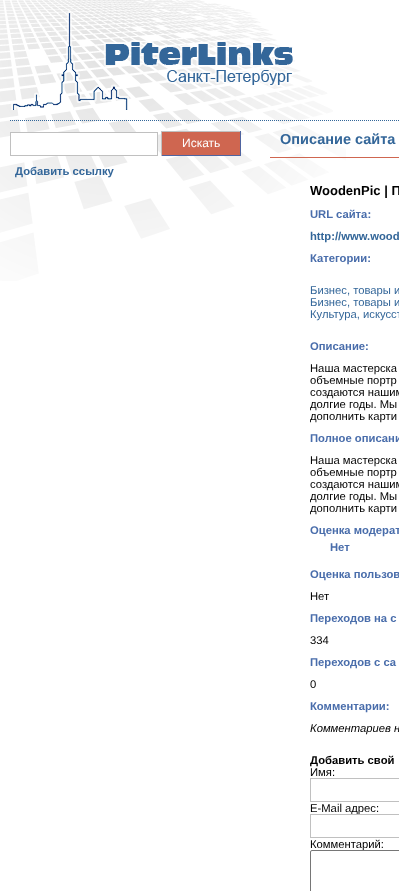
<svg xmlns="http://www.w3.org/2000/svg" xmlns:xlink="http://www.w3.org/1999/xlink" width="399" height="891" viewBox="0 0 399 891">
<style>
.cls-1{font:12px Liberation Sans;fill:#ffffff}
.cls-2{font:bold 11.25px Liberation Sans;fill:#336699}
.cls-3{font:bold 14.5px Liberation Sans;fill:#336699}
.cls-4{font:bold 13px Liberation Sans;fill:#000000}
.cls-5{font:bold 11.25px Liberation Sans;fill:#496dab}
.cls-6{font:11.25px Liberation Sans;fill:#336699}
.cls-7{font:11.25px Liberation Sans;fill:#000000}
.cls-8{font:italic 11.25px Liberation Sans;fill:#000000}
.cls-9{font:bold 11.25px Liberation Sans;fill:#000000}
</style>
<rect width="100%" height="100%" fill="#ffffff"/>
<image xlink:href="image0.png" x="0" y="0" width="346" height="281"/>
<path fill="none" stroke="#336699" stroke-dasharray="1 1" d="M10 120.5H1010"/>
<image xlink:href="image1.png" x="11" y="11" width="283" height="99"/>
<rect fill="#ffffff" stroke="#c0c0c0" x="10.5" y="132.5" width="147" height="23"/>
<rect fill="#cf6650" x="162" y="132" width="78" height="23"/>
<rect fill="#c0c0c0" x="161" y="131" width="80" height="1"/>
<rect fill="#4f64a0" x="240" y="131" width="1" height="25"/>
<rect fill="#4f64a0" x="161" y="155" width="80" height="1"/>
<rect fill="#c0c0c0" x="161" y="131" width="1" height="25"/>
<rect fill="#cf6650" x="270" y="157" width="129" height="1"/>
<rect fill="none" stroke="#c0c0c0" x="310.5" y="778.5" width="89" height="23"/>
<text class="cls-1" x="182" y="147">Искать</text>
<text class="cls-2" x="15" y="175">Добавить ссылку</text>
<text class="cls-3" x="280" y="144">Описание сайта</text>
<text class="cls-4" x="310" y="195">WoodenPic | П</text>
<text class="cls-5" x="310" y="218">URL сайта:</text>
<text class="cls-2" x="310" y="240">http://www.wood</text>
<text class="cls-5" x="310" y="262">Категории:</text>
<text class="cls-6"><tspan x="310" y="294">Бизнес, товары и</tspan><tspan x="310" y="306">Бизнес, товары и</tspan><tspan x="310" y="318">Культура, искусст</tspan></text>
<text class="cls-5" x="310" y="350">Описание:</text>
<text class="cls-7"><tspan x="310" y="372">Наша мастерска</tspan><tspan x="310" y="384">объемные портр</tspan><tspan x="310" y="396">создаются нашим</tspan><tspan x="310" y="408">долгие годы. Мы</tspan><tspan x="310" y="420">дополнить карти</tspan></text>
<text class="cls-5" x="310" y="442">Полное описани</text>
<text class="cls-7"><tspan x="310" y="464">Наша мастерска</tspan><tspan x="310" y="476">объемные портр</tspan><tspan x="310" y="488">создаются нашим</tspan><tspan x="310" y="500">долгие годы. Мы</tspan><tspan x="310" y="512">дополнить карти</tspan></text>
<text class="cls-5" x="310" y="534">Оценка модерат</text>
<text class="cls-5" x="330" y="551">Нет</text>
<text class="cls-5" x="310" y="578">Оценка пользов</text>
<text class="cls-7" x="310" y="600">Нет</text>
<text class="cls-5" x="310" y="622">Переходов на с</text>
<text class="cls-7" x="310" y="644">334</text>
<text class="cls-5" x="310" y="666">Переходов с са</text>
<text class="cls-7" x="310" y="688">0</text>
<text class="cls-5" x="310" y="710">Комментарии:</text>
<text class="cls-8" x="310" y="732">Комментариев н</text>
<text class="cls-9" x="310" y="764">Добавить свой</text>
<text class="cls-7" x="310" y="776">Имя:</text>
<text class="cls-7" x="310" y="812">E-Mail адрес:</text>
<rect fill="none" stroke="#c0c0c0" x="310.5" y="814.5" width="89" height="23"/>
<text class="cls-7" x="310" y="848">Комментарий:</text>
<rect fill="#ffffff" stroke="#767676" x="310.5" y="850.5" width="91" height="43" rx="1.5"/>
</svg>
